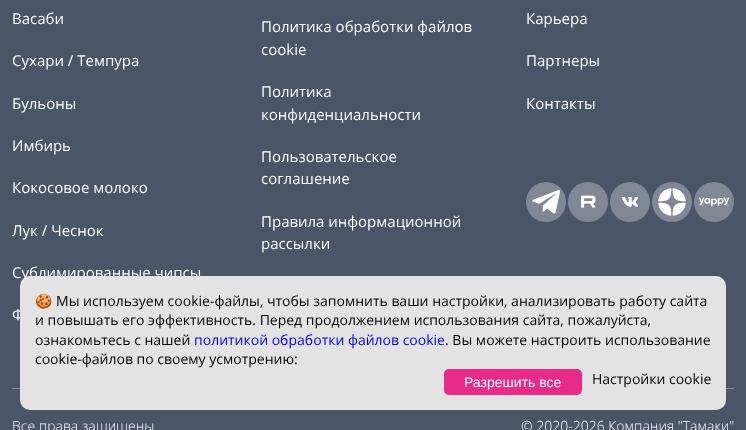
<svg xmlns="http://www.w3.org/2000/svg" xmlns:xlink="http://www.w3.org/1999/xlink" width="746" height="430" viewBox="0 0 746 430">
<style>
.cls-1{font:15px Open Sans;fill:#ffffff}
.cls-2{font:300 14px Open Sans;fill:#ffffff}
.cls-3{font:14px Noto Color Emoji;fill:#000000}
.cls-4{font:14px Open Sans;fill:#000000}
.cls-5{font:14px Open Sans;fill:#0000ee}
.cls-6{font:14px Liberation Sans;fill:#ffffff}
</style>
<rect width="100%" height="100%" fill="#4a5568"/>
<circle fill="#808895" cx="546" cy="202" r="20"/>
<image xlink:href="image0.png" x="532" y="190" width="28" height="24"/>
<circle fill="#808895" cx="588" cy="202" r="20"/>
<image xlink:href="image1.png" x="581" y="195" width="15" height="13"/>
<circle fill="#808895" cx="630" cy="202" r="20"/>
<image xlink:href="image2.png" x="622" y="197" width="16" height="10"/>
<circle fill="#808895" cx="672" cy="202" r="20"/>
<image xlink:href="image3.png" x="658" y="188" width="28" height="28"/>
<circle fill="#808895" cx="714" cy="202" r="20"/>
<image xlink:href="image4.png" x="699" y="197" width="30" height="10"/>
<rect fill="#868d9a" x="12" y="388" width="722" height="1"/>
<text class="cls-1" x="12" y="24">Васаби</text>
<text class="cls-1" x="12" y="66">Сухари / Темпура</text>
<text class="cls-1" x="12" y="109">Бульоны</text>
<text class="cls-1" x="12" y="151">Имбирь</text>
<text class="cls-1" x="12" y="193">Кокосовое молоко</text>
<text class="cls-1" x="12" y="236">Лук / Чеснок</text>
<text class="cls-1" x="12" y="278">Сублимированные чипсы</text>
<text class="cls-1" x="12" y="320">Ф</text>
<text class="cls-1"><tspan x="261" y="32">Политика обработки файлов</tspan><tspan x="261" y="55">cookie</tspan></text>
<text class="cls-1"><tspan x="261" y="97">Политика</tspan><tspan x="261" y="120">конфиденциальности</tspan></text>
<text class="cls-1"><tspan x="261" y="162">Пользовательское</tspan><tspan x="261" y="184">соглашение</tspan></text>
<text class="cls-1"><tspan x="261" y="227">Правила информационной</tspan><tspan x="261" y="249">рассылки</tspan></text>
<text class="cls-1" x="526" y="24">Карьера</text>
<text class="cls-1" x="526" y="66">Партнеры</text>
<text class="cls-1" x="526" y="109">Контакты</text>
<text class="cls-2" x="12" y="431">Все права защищены</text>
<text class="cls-2" x="521" y="431">© 2020-2026 Компания "Тамаки"</text>
<rect fill="#e3e3e3" x="20" y="276" width="706" height="134" rx="10"/>
<text class="cls-3" x="35" y="306">🍪</text>
<text class="cls-4" x="56" y="306">Мы используем cookie-файлы, чтобы запомнить ваши настройки, анализировать работу сайта</text>
<text class="cls-4"><tspan x="35" y="325">и повышать его эффективность. Перед продолжением использования сайта, пожалуйста,</tspan><tspan x="35" y="345">ознакомьтесь с нашей</tspan></text>
<text class="cls-5" x="194" y="345">политикой обработки файлов cookie</text>
<text class="cls-4" x="445" y="345">. Вы можете настроить использование</text>
<text class="cls-4" x="35" y="364">cookie-файлов по своему усмотрению:</text>
<rect fill="#e82a89" x="444" y="369" width="138" height="26" rx="5"/>
<text class="cls-6" x="464" y="387">Разрешить все</text>
<text class="cls-4" x="592" y="384">Настройки cookie</text>
</svg>
